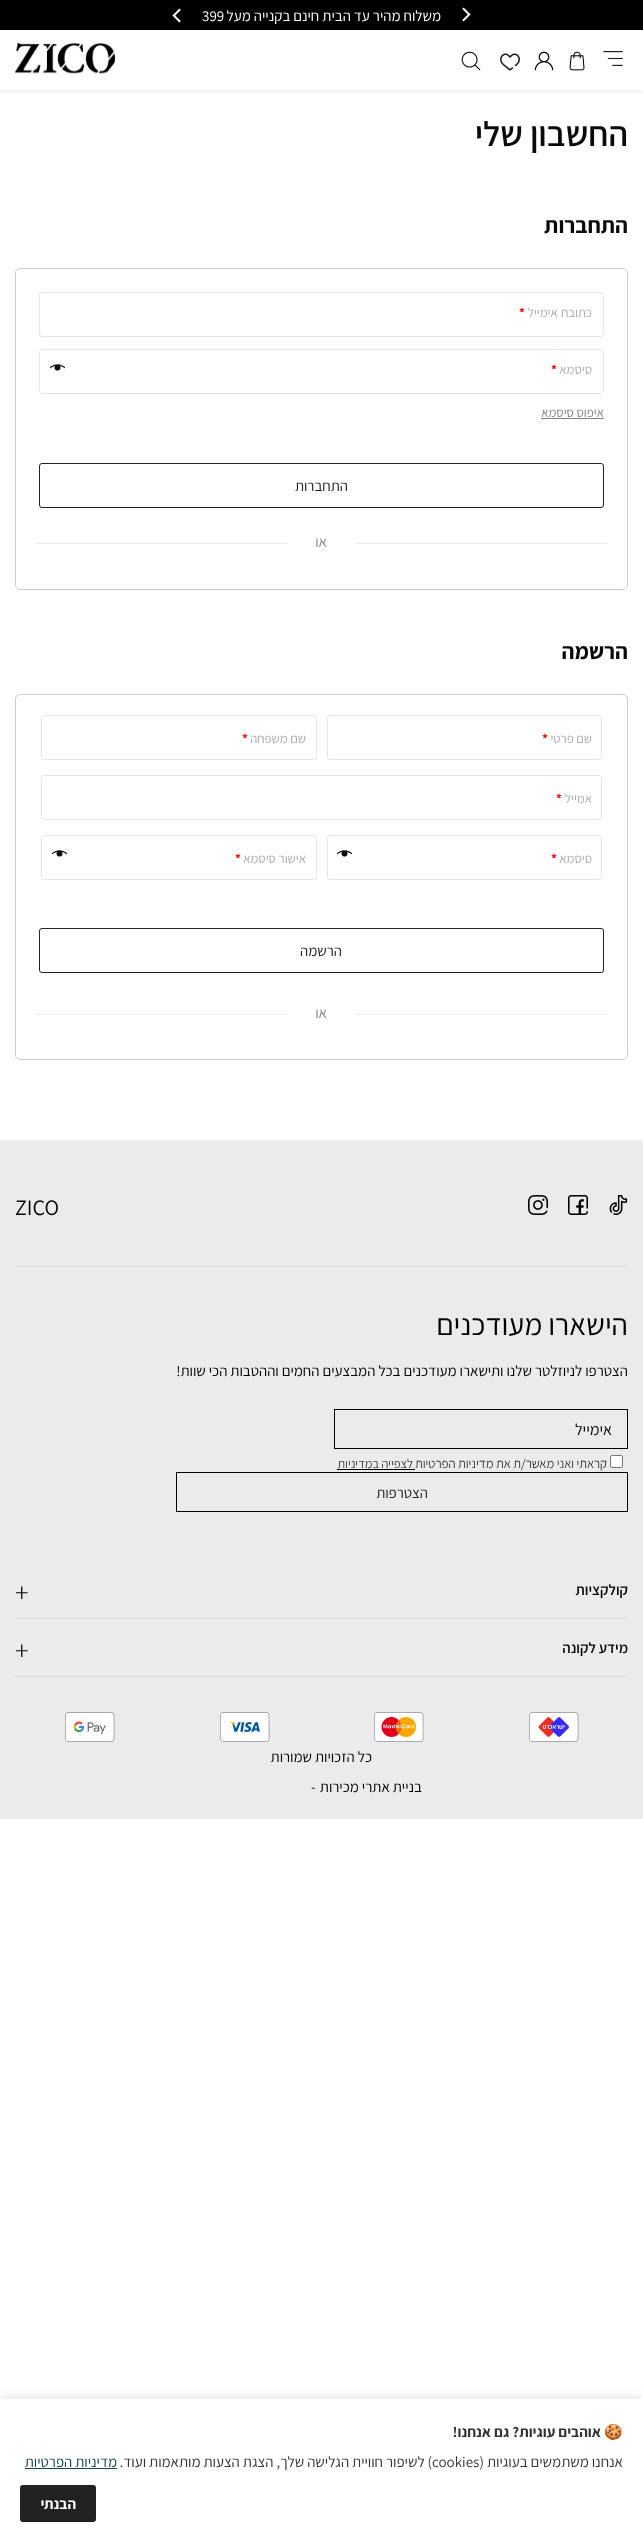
<svg xmlns="http://www.w3.org/2000/svg" xmlns:xlink="http://www.w3.org/1999/xlink" width="643" height="2542" viewBox="0 0 643 2542">
<style>
.cls-1{font:15px Assistant;direction:rtl;fill:#ffffff}
.cls-2{font:15px Assistant;fill:#ffffff}
.cls-3{font:600 35px Assistant;direction:rtl;fill:#0a0a0a}
.cls-4{font:bold 22.5px Assistant;direction:rtl;fill:#0a0a0a}
.cls-5{font:13px Assistant;direction:rtl;fill:#ababab}
.cls-6{font:bold 13px Assistant;fill:#ff0000}
.cls-7{font:13px Assistant;direction:rtl;fill:#848484}
.cls-8{font:15px Assistant;direction:rtl;fill:#212121}
.cls-9{font:15px Assistant;direction:rtl;fill:#848484}
.cls-10{font:22px Assistant;fill:#000000}
.cls-11{font:30px Assistant;direction:rtl;fill:#000000}
.cls-12{font:15px Assistant;direction:rtl;fill:#000000}
.cls-13{font:16px Assistant;direction:rtl;fill:#000000}
.cls-14{font:300 13px Assistant;direction:rtl;fill:#000000}
.cls-15{font:300 12.75px Assistant;direction:rtl;fill:#000000}
.cls-16{font:600 15px Assistant;direction:rtl;fill:#000000}
.cls-17{font:300 28px Assistant;fill:#000000}
.cls-18{font:15px Assistant;fill:#000000}
.cls-19{font:bold 15px Noto Color Emoji;direction:rtl;fill:#333333}
.cls-20{font:bold 15px Assistant;direction:rtl;fill:#333333}
.cls-21{font:15px Assistant;direction:rtl;fill:#333333}
.cls-22{font:15px Assistant;fill:#333333}
.cls-23{font:15px Assistant;direction:rtl;fill:#144456}
.cls-24{font:bold 15px Assistant;direction:rtl;fill:#ffffff}
</style>
<defs>
<clipPath id="clip1"><rect x="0" y="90" width="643" height="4"/></clipPath>
</defs>
<rect width="100%" height="100%" fill="#ffffff"/>
<g clip-path="url(#clip1)">
<rect fill="#989898" fill-opacity="0.25" filter="blur(2.5px)" x="-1" y="-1" width="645" height="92"/>
</g>
<rect fill="#000000" x="0" y="0" width="643" height="30"/>
<image xlink:href="image0.png" x="462" y="7" width="9" height="15"/>
<image xlink:href="image1.png" x="172" y="8" width="9" height="15"/>
<image xlink:href="image2.png" x="603" y="51" width="20" height="15"/>
<image xlink:href="image3.png" x="569" y="51" width="16" height="20"/>
<image xlink:href="image4.png" x="534" y="51" width="20" height="20"/>
<image xlink:href="image5.png" x="500" y="53" width="20" height="18"/>
<image xlink:href="image6.png" x="461" y="51" width="20" height="20"/>
<image xlink:href="image7.png" x="15" y="43" width="100" height="31"/>
<rect fill="none" stroke="#cfc8d8" x="15.5" y="268.5" width="612" height="321" rx="4.5"/>
<rect fill="none" stroke="#e4e6ea" x="39.5" y="292.5" width="564" height="44" rx="2.5"/>
<rect fill="none" stroke="#e4e6ea" x="39.5" y="349.5" width="564" height="44" rx="2.5"/>
<image xlink:href="image8.png" x="50" y="364" width="15" height="7"/>
<rect fill="#848484" x="541" y="418" width="63" height="1"/>
<rect fill="none" stroke="#212121" x="39.5" y="463.5" width="564" height="44" rx="2.5"/>
<rect fill="#ebebeb" x="356" y="543" width="251" height="1"/>
<rect fill="#ebebeb" x="36" y="543" width="251" height="1"/>
<rect fill="none" stroke="#cfc8d8" x="15.5" y="694.5" width="612" height="365" rx="4.5"/>
<rect fill="none" stroke="#e4e6ea" x="327.5" y="715.5" width="274" height="44" rx="2.5"/>
<rect fill="none" stroke="#e4e6ea" x="41.5" y="715.5" width="275" height="44" rx="2.5"/>
<rect fill="none" stroke="#e4e6ea" x="41.5" y="775.5" width="560" height="44" rx="2.5"/>
<rect fill="none" stroke="#e4e6ea" x="327.5" y="835.5" width="274" height="44" rx="2.5"/>
<image xlink:href="image8.png" x="337" y="850" width="15" height="7"/>
<rect fill="none" stroke="#e4e6ea" x="41.5" y="835.5" width="275" height="44" rx="2.5"/>
<image xlink:href="image8.png" x="52" y="850" width="15" height="7"/>
<rect fill="none" stroke="#212121" x="39.5" y="928.5" width="564" height="44" rx="2.5"/>
<rect fill="#ebebeb" x="356" y="1014" width="251" height="1"/>
<rect fill="#ebebeb" x="36" y="1014" width="251" height="1"/>
<rect fill="#ebebeb" x="0" y="1140" width="643" height="679"/>
<rect fill="#dbdbdb" x="15" y="1266" width="613" height="1"/>
<image xlink:href="image9.png" x="609" y="1195" width="19" height="20"/>
<image xlink:href="image10.png" x="568" y="1195" width="20" height="20"/>
<image xlink:href="image11.png" x="528" y="1195" width="20" height="20"/>
<rect fill="none" stroke="#000000" x="334.5" y="1409.5" width="293" height="39"/>
<rect fill="#ffffff" stroke="#767676" x="610.5" y="1455.5" width="12" height="12" rx="1.5"/>
<rect fill="#000000" x="337" y="1469" width="78" height="1"/>
<rect fill="none" stroke="#000000" x="176.5" y="1472.5" width="451" height="39"/>
<rect fill="#dbdbdb" x="15" y="1618" width="613" height="1"/>
<rect fill="#dbdbdb" x="15" y="1676" width="613" height="1"/>
<image xlink:href="image12.png" x="529" y="1712" width="50" height="30"/>
<image xlink:href="image13.png" x="374" y="1712" width="50" height="30"/>
<image xlink:href="image14.png" x="220" y="1712" width="50" height="30"/>
<image xlink:href="image15.png" x="65" y="1712" width="50" height="30"/>
<rect fill="#000000" fill-opacity="0.1" filter="blur(5px)" x="0" y="2397" width="643" height="143"/>
<rect fill="#ffffff" x="0" y="2399" width="643" height="143"/>
<rect fill="#144456" x="25" y="2468" width="92" height="1"/>
<rect fill="#212121" x="20" y="2485" width="76" height="37" rx="3"/>
<text class="cls-1" x="441" y="21">משלוח מהיר עד הבית חינם בקנייה מעל</text>
<text class="cls-2" x="202" y="21">399</text>
<text class="cls-3" x="628" y="146">החשבון שלי</text>
<text class="cls-4" x="628" y="233">התחברות</text>
<text class="cls-5" x="592" y="317">כתובת אימייל</text>
<text class="cls-6" x="519" y="317">*</text>
<text class="cls-5" x="592" y="374">סיסמא</text>
<text class="cls-6" x="551" y="374">*</text>
<text class="cls-7" x="604" y="417">איפוס סיסמא</text>
<text class="cls-8" x="348" y="491">התחברות</text>
<text class="cls-9" x="327" y="547">או</text>
<text class="cls-4" x="628" y="659">הרשמה</text>
<text class="cls-5" x="592" y="743">שם פרטי</text>
<text class="cls-6" x="542" y="743">*</text>
<text class="cls-5" x="306" y="743">שם משפחה</text>
<text class="cls-6" x="242" y="743">*</text>
<text class="cls-5" x="592" y="803">אמייל</text>
<text class="cls-6" x="556" y="803">*</text>
<text class="cls-5" x="592" y="863">סיסמא</text>
<text class="cls-6" x="551" y="863">*</text>
<text class="cls-5" x="306" y="863">אישור סיסמא</text>
<text class="cls-6" x="235" y="863">*</text>
<text class="cls-8" x="342" y="956">הרשמה</text>
<text class="cls-9" x="327" y="1018">או</text>
<text class="cls-10" x="15" y="1215">ZICO</text>
<text class="cls-11" x="628" y="1335">הישארו מעודכנים</text>
<text class="cls-12" x="628" y="1376">הצטרפו לניוזלטר שלנו ותישארו מעודכנים בכל המבצעים החמים וההטבות הכי שוות!</text>
<text class="cls-13" x="612" y="1435">אימייל</text>
<text class="cls-14" x="607" y="1468">קראתי ואני מאשר/ת את מדיניות הפרטיות</text>
<text class="cls-15" x="413" y="1468">לצפייה במדיניות</text>
<text class="cls-8" x="428" y="1498">הצטרפות</text>
<text class="cls-16" x="628" y="1595">קולקציות</text>
<text class="cls-17" x="15" y="1602">+</text>
<text class="cls-16" x="628" y="1653">מידע לקונה</text>
<text class="cls-17" x="15" y="1660">+</text>
<text class="cls-12" x="372" y="1762">כל הזכויות שמורות</text>
<text class="cls-12" x="422" y="1792">בניית אתרי מכירות</text>
<text class="cls-18" x="311" y="1792">-</text>
<text class="cls-19" x="623" y="2437">🍪</text>
<text class="cls-20" x="601" y="2437">אוהבים עוגיות? גם אנחנו!</text>
<text class="cls-21" x="623" y="2467">אנחנו משתמשים בעוגיות (</text>
<text class="cls-22" x="432" y="2467">cookies</text>
<text class="cls-21" x="432" y="2467">) לשיפור חוויית הגלישה שלך, הצגת הצעות מותאמות ועוד.</text>
<text class="cls-23" x="117" y="2467">מדיניות הפרטיות</text>
<text class="cls-24" x="76" y="2509">הבנתי</text>
</svg>
